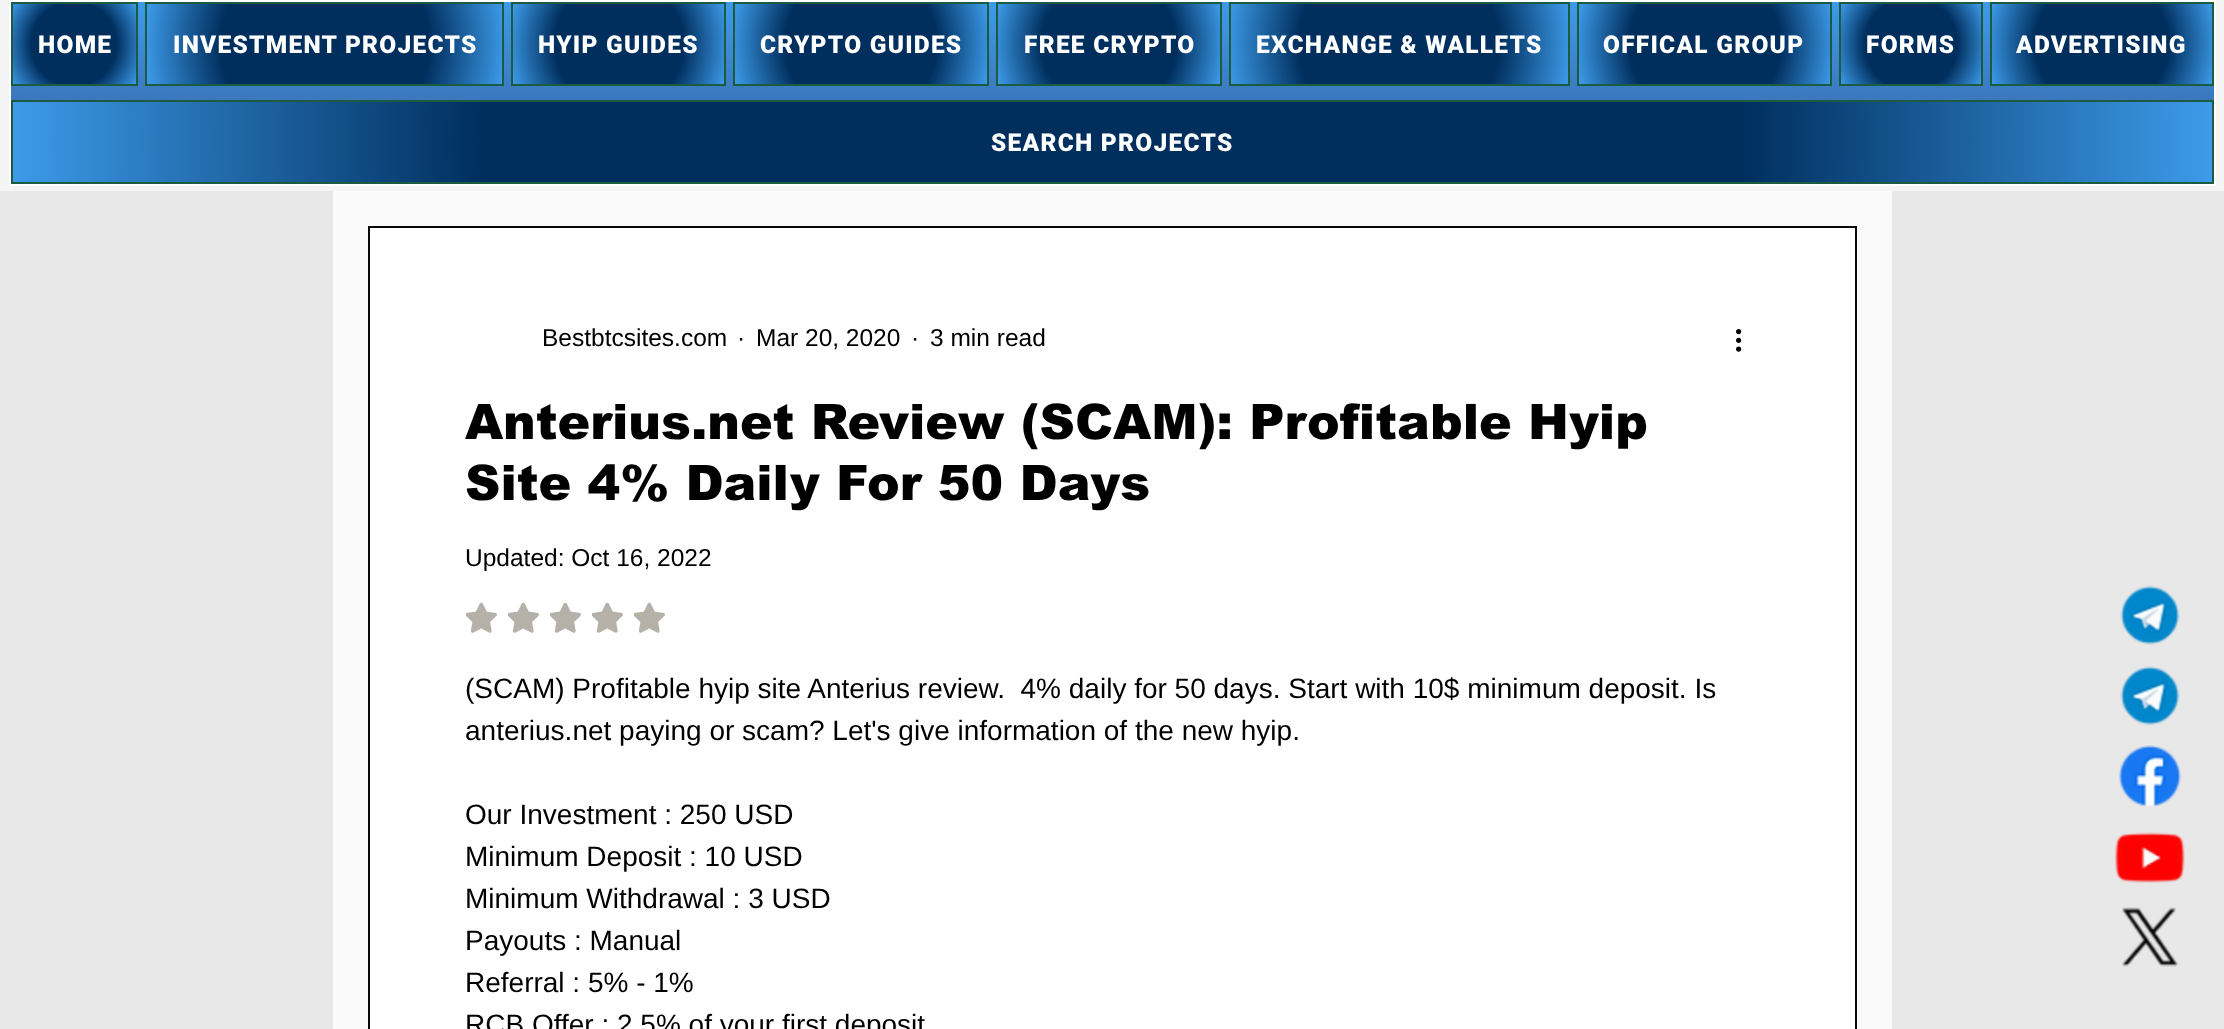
<svg xmlns="http://www.w3.org/2000/svg" xmlns:xlink="http://www.w3.org/1999/xlink" width="2224" height="1029" viewBox="0 0 2224 1029">
<style>
.cls-1{font:900 24.5px Roboto;letter-spacing:1.25px;fill:#ffffff}
.cls-2{font:24.5px Liberation Sans;fill:#000000}
.cls-3{font:900 49px arial;fill:#000000}
.cls-4{font:28px Liberation Sans;fill:#000000}
</style>
<defs>
<linearGradient id="g1" gradientUnits="userSpaceOnUse" x1="1112" y1="1.7" x2="1112" y2="184"><stop offset="0" stop-color="#3d9be9"/><stop offset="1" stop-color="#3b5998"/></linearGradient>
<radialGradient id="g2" gradientUnits="userSpaceOnUse" cx="74" cy="44" r="74"><stop offset="0.57" stop-color="#002e5d"/><stop offset="1" stop-color="#3d9be9"/></radialGradient>
<radialGradient id="g3" gradientUnits="userSpaceOnUse" cx="325" cy="44" r="182"><stop offset="0.57" stop-color="#002e5d"/><stop offset="1" stop-color="#3d9be9"/></radialGradient>
<radialGradient id="g4" gradientUnits="userSpaceOnUse" cx="619" cy="44" r="113"><stop offset="0.57" stop-color="#002e5d"/><stop offset="1" stop-color="#3d9be9"/></radialGradient>
<radialGradient id="g5" gradientUnits="userSpaceOnUse" cx="861" cy="44" r="132"><stop offset="0.57" stop-color="#002e5d"/><stop offset="1" stop-color="#3d9be9"/></radialGradient>
<radialGradient id="g6" gradientUnits="userSpaceOnUse" cx="1109" cy="44" r="118"><stop offset="0.57" stop-color="#002e5d"/><stop offset="1" stop-color="#3d9be9"/></radialGradient>
<radialGradient id="g7" gradientUnits="userSpaceOnUse" cx="1399" cy="44" r="174"><stop offset="0.57" stop-color="#002e5d"/><stop offset="1" stop-color="#3d9be9"/></radialGradient>
<radialGradient id="g8" gradientUnits="userSpaceOnUse" cx="1705" cy="44" r="132"><stop offset="0.57" stop-color="#002e5d"/><stop offset="1" stop-color="#3d9be9"/></radialGradient>
<radialGradient id="g9" gradientUnits="userSpaceOnUse" cx="1911" cy="44" r="81"><stop offset="0.57" stop-color="#002e5d"/><stop offset="1" stop-color="#3d9be9"/></radialGradient>
<radialGradient id="g10" gradientUnits="userSpaceOnUse" cx="2102" cy="44" r="117"><stop offset="0.57" stop-color="#002e5d"/><stop offset="1" stop-color="#3d9be9"/></radialGradient>
<radialGradient id="g11" gradientUnits="userSpaceOnUse" cx="1112" cy="142" r="1101"><stop offset="0.57" stop-color="#002e5d"/><stop offset="1" stop-color="#3d9be9"/></radialGradient>
</defs>
<rect width="100%" height="100%" fill="#e8e8e8"/>
<rect fill="#f4f4f4" x="0" y="0" width="2224" height="191"/>
<rect fill="url(#g1)" x="11" y="2" width="2203" height="98"/>
<rect fill="none" stroke="#ffffff" stroke-width="2" x="10" y="1" width="2205" height="184"/>
<rect fill="url(#g2)" x="13" y="4" width="123" height="80"/>
<rect fill="none" stroke="#1b5b3f" stroke-width="2" x="12" y="3" width="125" height="82"/>
<rect fill="url(#g3)" x="147" y="4" width="355" height="80"/>
<rect fill="none" stroke="#1b5b3f" stroke-width="2" x="146" y="3" width="357" height="82"/>
<rect fill="url(#g4)" x="513" y="4" width="211" height="80"/>
<rect fill="none" stroke="#1b5b3f" stroke-width="2" x="512" y="3" width="213" height="82"/>
<rect fill="url(#g5)" x="735" y="4" width="252" height="80"/>
<rect fill="none" stroke="#1b5b3f" stroke-width="2" x="734" y="3" width="254" height="82"/>
<rect fill="url(#g6)" x="998" y="4" width="222" height="80"/>
<rect fill="none" stroke="#1b5b3f" stroke-width="2" x="997" y="3" width="224" height="82"/>
<rect fill="url(#g7)" x="1231" y="4" width="337" height="80"/>
<rect fill="none" stroke="#1b5b3f" stroke-width="2" x="1230" y="3" width="339" height="82"/>
<rect fill="url(#g8)" x="1579" y="4" width="251" height="80"/>
<rect fill="none" stroke="#1b5b3f" stroke-width="2" x="1578" y="3" width="253" height="82"/>
<rect fill="url(#g9)" x="1841" y="4" width="140" height="80"/>
<rect fill="none" stroke="#1b5b3f" stroke-width="2" x="1840" y="3" width="142" height="82"/>
<rect fill="url(#g10)" x="1992" y="4" width="220" height="80"/>
<rect fill="none" stroke="#1b5b3f" stroke-width="2" x="1991" y="3" width="222" height="82"/>
<rect fill="url(#g11)" x="13" y="102" width="2199" height="80"/>
<rect fill="none" stroke="#1b5b3f" stroke-width="2" x="12" y="101" width="2201" height="82"/>
<rect fill="#fafafa" x="333" y="191" width="1559" height="838"/>
<rect fill="#ffffff" stroke="#080808" stroke-width="2" x="369" y="227" width="1487" height="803"/>
<image xlink:href="image0.png" x="1736" y="329" width="6" height="23"/>
<image xlink:href="image1.png" x="466" y="602" width="31" height="31"/>
<image xlink:href="image1.png" x="508" y="602" width="31" height="31"/>
<image xlink:href="image1.png" x="550" y="602" width="31" height="31"/>
<image xlink:href="image1.png" x="592" y="602" width="31" height="31"/>
<image xlink:href="image1.png" x="634" y="602" width="31" height="31"/>
<image xlink:href="image2.png" x="2120" y="585" width="60" height="60"/>
<image xlink:href="image3.png" x="2120" y="666" width="60" height="60"/>
<image xlink:href="image4.png" x="2118" y="745" width="64" height="62"/>
<image xlink:href="image5.png" x="2115" y="832" width="70" height="51"/>
<image xlink:href="image6.png" x="2122" y="907" width="56" height="60"/>
<text class="cls-1" x="38" y="53">HOME</text>
<text class="cls-1" x="173" y="53">INVESTMENT PROJECTS</text>
<text class="cls-1" x="538" y="53">HYIP GUIDES</text>
<text class="cls-1" x="760" y="53">CRYPTO GUIDES</text>
<text class="cls-1" x="1024" y="53">FREE CRYPTO</text>
<text class="cls-1" x="1256" y="53">EXCHANGE &amp; WALLETS</text>
<text class="cls-1" x="1603" y="53">OFFICAL GROUP</text>
<text class="cls-1" x="1866" y="53">FORMS</text>
<text class="cls-1" x="2016" y="53">ADVERTISING</text>
<text class="cls-1" x="991" y="151">SEARCH PROJECTS</text>
<text class="cls-2" x="542" y="346">Bestbtcsites.com</text>
<text class="cls-2" x="737" y="346">·</text>
<text class="cls-2" x="756" y="346">Mar 20, 2020</text>
<text class="cls-2" x="911" y="346">·</text>
<text class="cls-2" x="930" y="346">3 min read</text>
<text class="cls-3"><tspan x="465" y="439">Anterius.net Review (SCAM): Profitable Hyip</tspan><tspan x="465" y="500">Site 4% Daily For 50 Days</tspan></text>
<text class="cls-2" x="465" y="566">Updated: Oct 16, 2022</text>
<text class="cls-4" xml:space="preserve"><tspan x="465" y="698">(SCAM) Profitable hyip site Anterius review.  4% daily for 50 days. Start with 10$ minimum deposit. Is</tspan><tspan x="465" y="740">anterius.net paying or scam? Let's give information of the new hyip.</tspan></text>
<text class="cls-4"><tspan x="465" y="824">Our Investment : 250 USD</tspan><tspan x="465" y="866">Minimum Deposit : 10 USD</tspan><tspan x="465" y="908">Minimum Withdrawal : 3 USD</tspan><tspan x="465" y="950">Payouts : Manual</tspan><tspan x="465" y="992">Referral : 5% - 1%</tspan><tspan x="465" y="1034">RCB Offer : 2.5% of your first deposit</tspan></text>
</svg>
